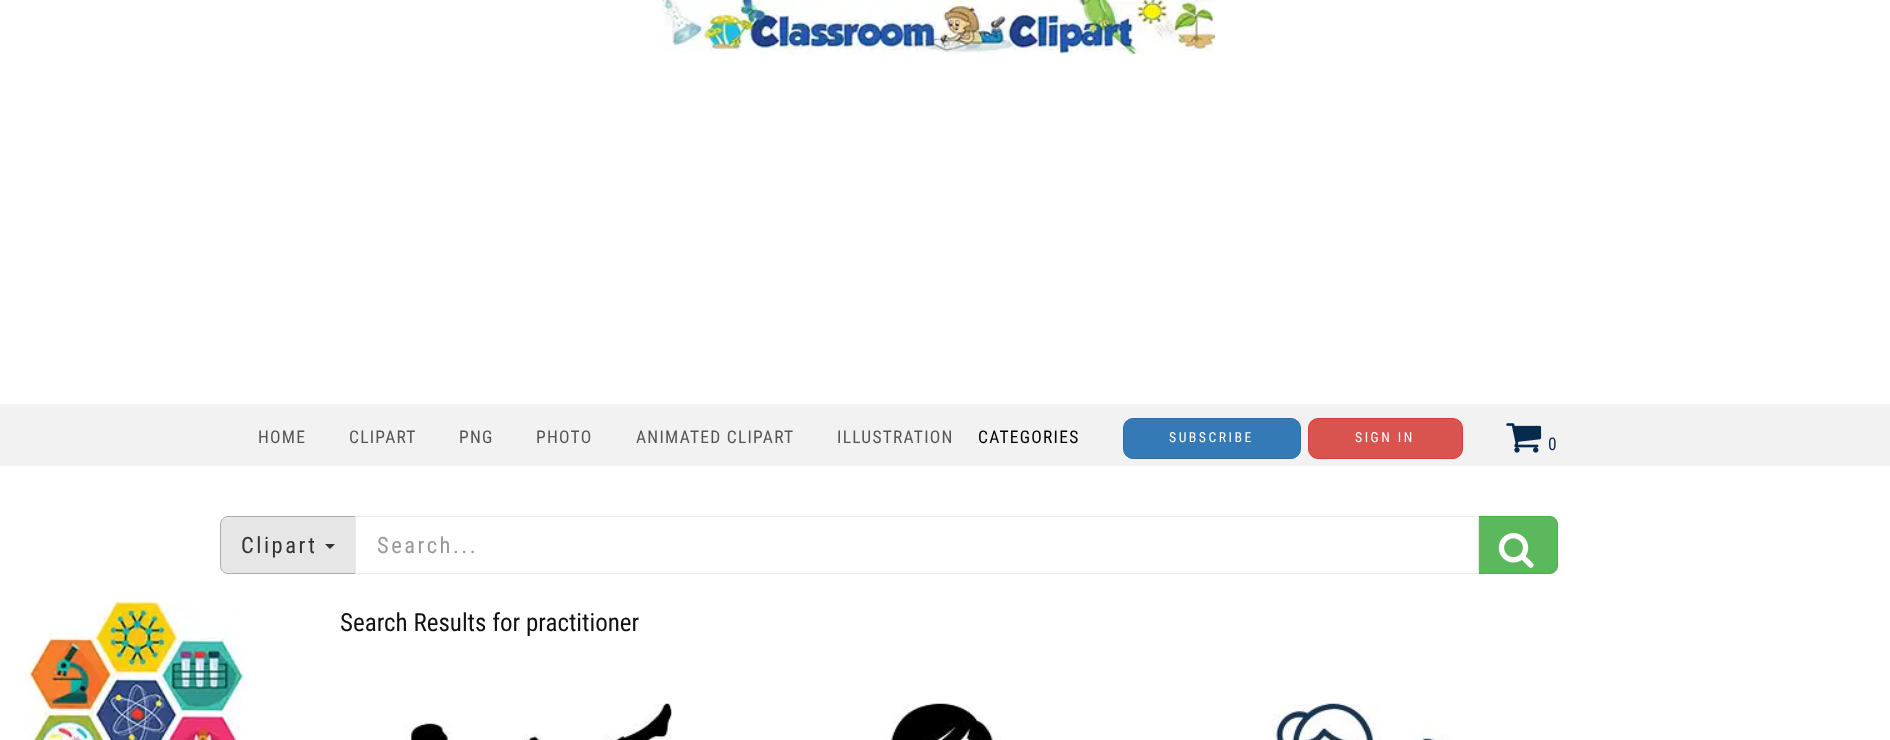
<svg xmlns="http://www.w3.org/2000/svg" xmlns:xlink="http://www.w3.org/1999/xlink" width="1890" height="740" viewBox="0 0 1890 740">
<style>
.cls-1{font:17.5px Roboto Condensed;letter-spacing:1.25px;fill:#565555}
.cls-2{font:17.5px Roboto Condensed;letter-spacing:1.25px;fill:#000000}
.cls-3{font:13.75px Roboto Condensed;letter-spacing:2.5px;fill:#ffffff}
.cls-4{font:17.5px Roboto Condensed;letter-spacing:1.25px;fill:#072a4f}
.cls-5{font:22.5px Roboto Condensed;letter-spacing:2.5px;fill:#333333}
.cls-6{font:22.5px Roboto Condensed;letter-spacing:2.5px;fill:#999999}
.cls-7{font:25px Roboto Condensed;fill:#111111}
</style>
<rect width="100%" height="100%" fill="#ffffff"/>
<image xlink:href="image0.png" x="662" y="0" width="553" height="54"/>
<rect fill="#f2f2f2" x="0" y="404" width="1890" height="62"/>
<rect fill="#337ab7" stroke="#2e6da4" x="1123.5" y="418.5" width="177" height="40" rx="9.5"/>
<rect fill="#d9534f" stroke="#d43f3a" x="1308.5" y="418.5" width="154" height="40" rx="9.5"/>
<image xlink:href="image1.png" x="1506" y="423" width="36" height="30"/>
<path fill="#e6e6e6" stroke="#adadad" d="M228 516.5H355.5V573.5H228C224 573.5 220.5 570 220.5 566V524C220.5 520 224 516.5 228 516.5Z"/>
<path fill="#333333" d="M325 544H335L330 549Z"/>
<path fill="#5cb85c" stroke="#4cae4c" d="M1478.5 516.5H1550C1554 516.5 1557.5 520 1557.5 524V566C1557.5 570 1554 573.5 1550 573.5H1478.5Z"/>
<rect fill="none" stroke="#eaeaea" x="355.5" y="516.5" width="1123" height="57"/>
<image xlink:href="image2.png" x="1498" y="533" width="36" height="35"/>
<image xlink:href="image3.png" x="24" y="601" width="225" height="139"/>
<image xlink:href="image4.png" x="403" y="703" width="269" height="37"/>
<image xlink:href="image5.png" x="884" y="703" width="117" height="37"/>
<image xlink:href="image6.png" x="1270" y="703" width="181" height="37"/>
<text class="cls-1" x="258" y="443">HOME</text>
<text class="cls-1" x="349" y="443">CLIPART</text>
<text class="cls-1" x="459" y="443">PNG</text>
<text class="cls-1" x="536" y="443">PHOTO</text>
<text class="cls-1" x="636" y="443">ANIMATED CLIPART</text>
<text class="cls-1" x="837" y="443">ILLUSTRATION</text>
<text class="cls-2" x="978" y="443">CATEGORIES</text>
<text class="cls-3" x="1169" y="442">SUBSCRIBE</text>
<text class="cls-3" x="1355" y="442">SIGN IN</text>
<text class="cls-4" x="1548" y="450">0</text>
<text class="cls-5" x="241" y="553">Clipart</text>
<text class="cls-6" x="377" y="553">Search...</text>
<text class="cls-7" x="340" y="631">Search Results for practitioner</text>
</svg>
